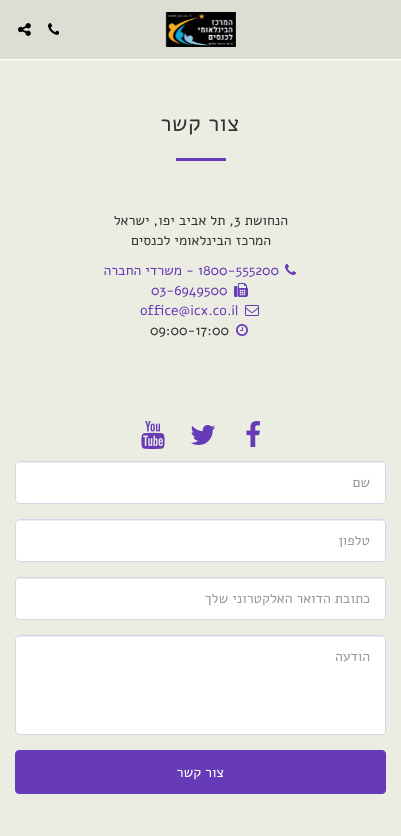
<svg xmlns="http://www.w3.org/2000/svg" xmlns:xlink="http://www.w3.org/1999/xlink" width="401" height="836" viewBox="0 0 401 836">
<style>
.cls-1{font:22.5px Alef;letter-spacing:0.5px;direction:rtl;fill:#333333}
.cls-2{font:14px Alef;direction:rtl;fill:#333333}
.cls-3{font:14px Alef;fill:#333333}
.cls-4{font:14px Alef;fill:#673ab7}
.cls-5{font:14px Alef;direction:rtl;fill:#673ab7}
.cls-6{font:14px Alef;direction:rtl;fill:#999999}
.cls-7{font:14px Alef;direction:rtl;fill:#ffffff}
</style>
<rect width="100%" height="100%" fill="#ecede2"/>
<rect fill="#dcddd3" x="0" y="0" width="401" height="59"/>
<rect fill="#ffffff" x="0" y="59" width="401" height="1"/>
<image xlink:href="image0.png" x="165" y="12" width="71" height="35"/>
<image xlink:href="image1.png" x="48" y="23" width="11" height="12"/>
<image xlink:href="image2.png" x="18" y="23" width="13" height="13"/>
<rect fill="#673ab7" x="176" y="158" width="50" height="3"/>
<image xlink:href="image3.png" x="285" y="264" width="11" height="11"/>
<image xlink:href="image4.png" x="234" y="283" width="14" height="14"/>
<image xlink:href="image5.png" x="245" y="305" width="14" height="11"/>
<image xlink:href="image6.png" x="236" y="324" width="12" height="12"/>
<image xlink:href="image7.png" x="246" y="421" width="14" height="26"/>
<image xlink:href="image8.png" x="190" y="425" width="26" height="20"/>
<image xlink:href="image9.png" x="141" y="421" width="24" height="28"/>
<rect fill="#ffffff" x="15" y="461" width="371" height="43" rx="4"/>
<path fill="#ececec" d="M19 463H382C384 463 385 464 385 466C385 464 384 462 382 462H19L17 463L16 466C16 464 17 463 19 463Z"/>
<rect fill="none" stroke="#d4d7e5" x="15.5" y="461.5" width="370" height="42" rx="3.5"/>
<rect fill="#ffffff" x="15" y="519" width="371" height="43" rx="4"/>
<path fill="#ececec" d="M19 521H382C384 521 385 522 385 524C385 522 384 520 382 520H19L17 521L16 524C16 522 17 521 19 521Z"/>
<rect fill="none" stroke="#d4d7e5" x="15.5" y="519.5" width="370" height="42" rx="3.5"/>
<rect fill="#ffffff" x="15" y="577" width="371" height="43" rx="4"/>
<path fill="#ececec" d="M19 579H382C384 579 385 580 385 582C385 580 384 578 382 578H19L17 579L16 582C16 580 17 579 19 579Z"/>
<rect fill="none" stroke="#d4d7e5" x="15.5" y="577.5" width="370" height="42" rx="3.5"/>
<rect fill="#ffffff" x="15" y="635" width="371" height="100" rx="4"/>
<path fill="#ececec" d="M19 637H382C384 637 385 638 385 640C385 638 384 636 382 636H19L17 637L16 640C16 638 17 637 19 637Z"/>
<rect fill="none" stroke="#d4d7e5" x="15.5" y="635.5" width="370" height="99" rx="3.5"/>
<rect fill="#673ab7" stroke="#673ab7" x="15.5" y="750.5" width="370" height="43" rx="3.5"/>
<text class="cls-1" x="240" y="131">צור קשר</text>
<text class="cls-2" x="288" y="225">הנחושת</text>
<text class="cls-3" x="234" y="225">3</text>
<text class="cls-2" x="234" y="225">, תל אביב יפו, ישראל</text>
<text class="cls-2" x="271" y="245">המרכז הבינלאומי לכנסים</text>
<text class="cls-4" x="198" y="275">1800-555200</text>
<text class="cls-4" x="186" y="275">-</text>
<text class="cls-5" x="182" y="275">משרדי החברה</text>
<text class="cls-4" x="151" y="295">03-6949500</text>
<text class="cls-4" x="140" y="315">office@icx.co.il</text>
<text class="cls-3" x="150" y="335">09:00-17:00</text>
<text class="cls-6" x="370" y="487">שם</text>
<text class="cls-6" x="370" y="545">טלפון</text>
<text class="cls-6" x="370" y="603">כתובת הדואר האלקטרוני שלך</text>
<text class="cls-6" x="370" y="661">הודעה</text>
<text class="cls-7" x="224" y="777">צור קשר</text>
</svg>
